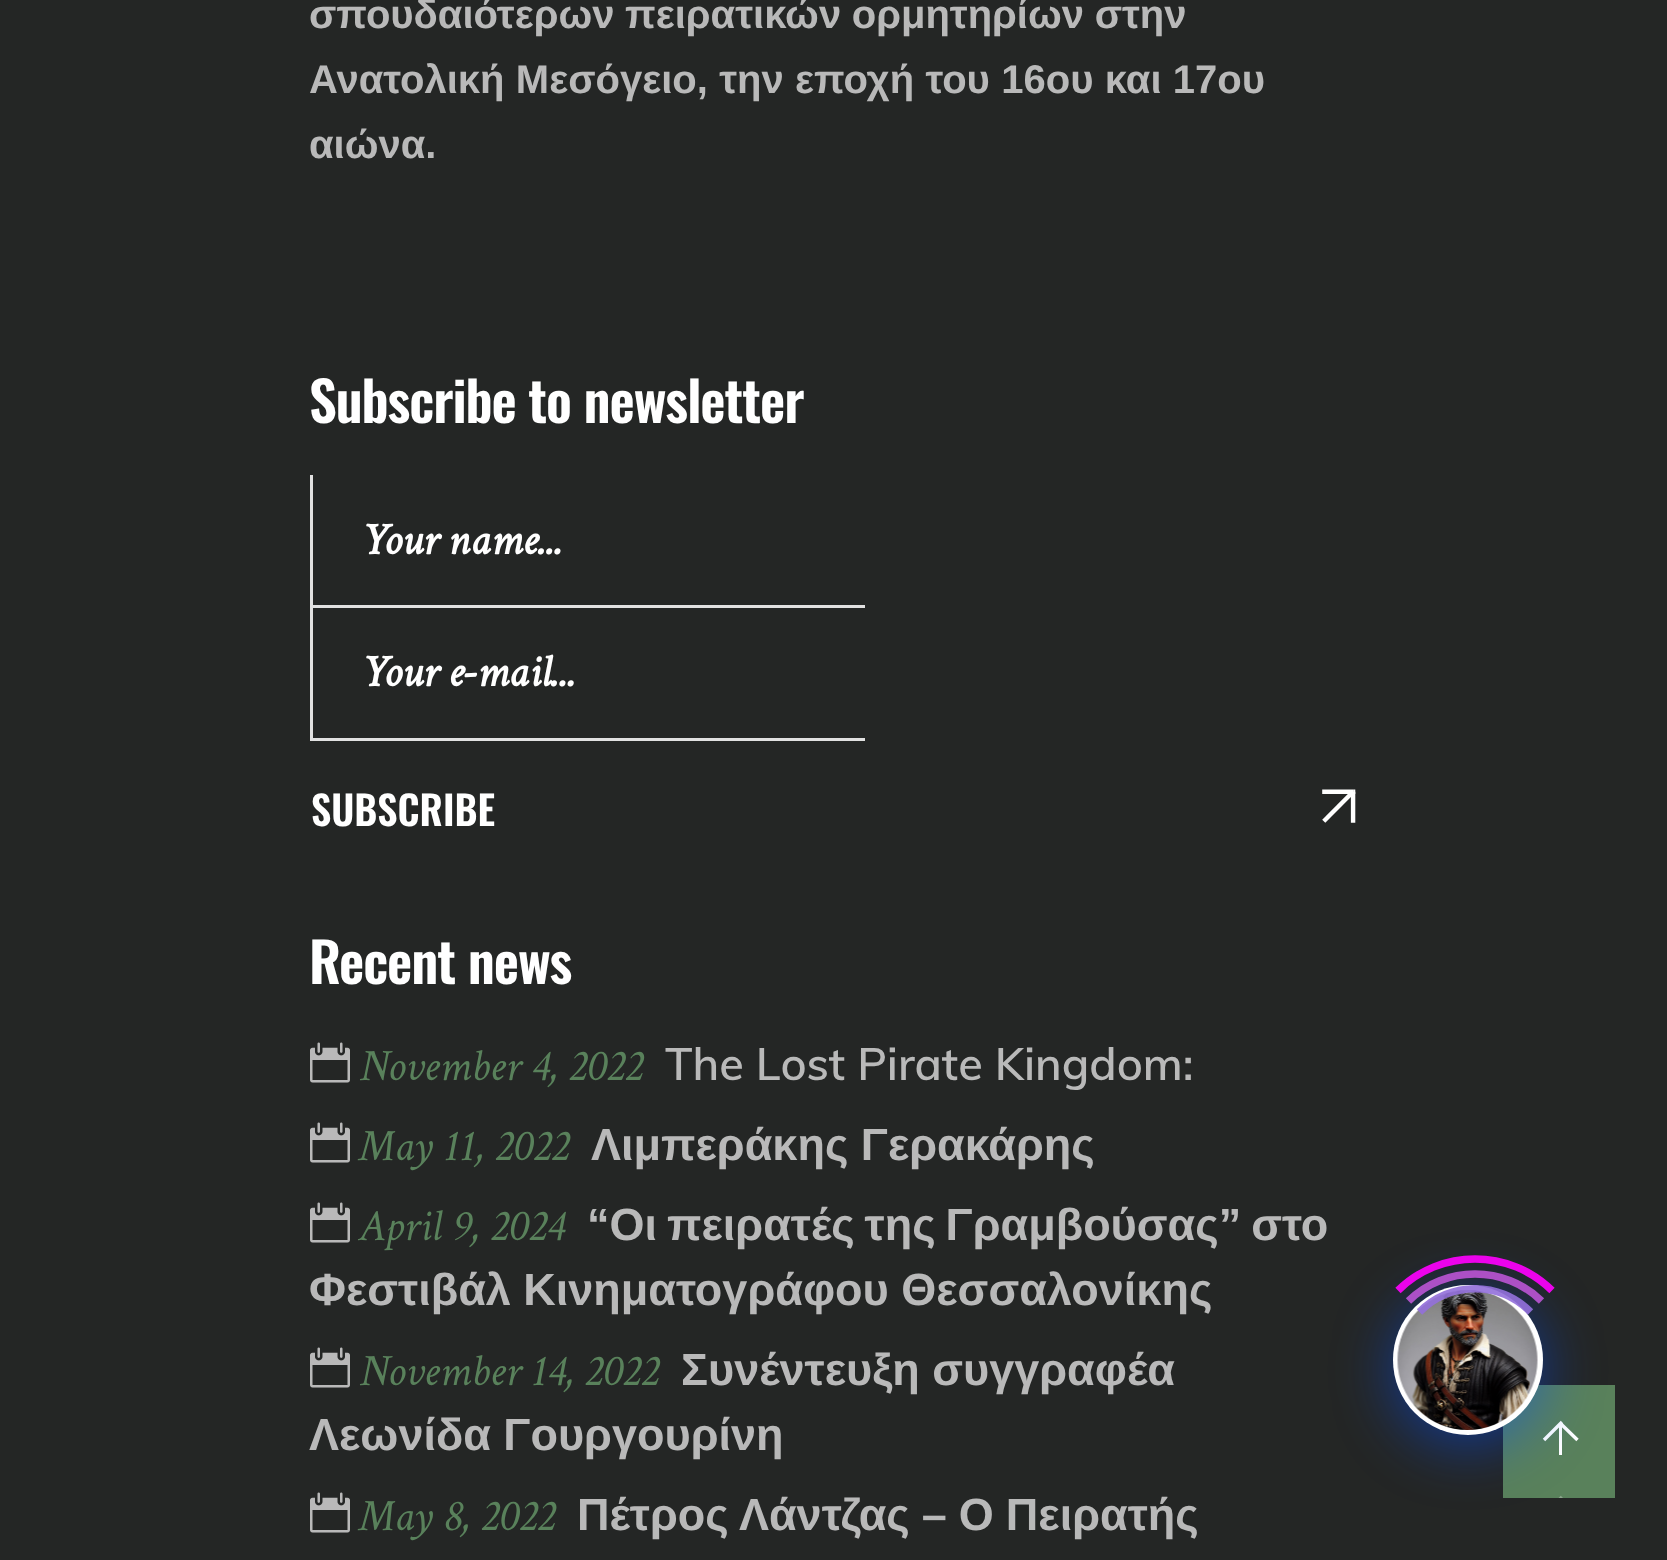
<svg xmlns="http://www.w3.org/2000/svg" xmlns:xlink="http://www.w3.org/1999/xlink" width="1667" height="1560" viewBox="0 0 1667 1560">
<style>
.cls-1{font:bold 40px Liberation Sans;fill:#b9b9b9}
.cls-2{font:600 55px Oswald;letter-spacing:-1.1px;fill:#ffffff}
.cls-3{font:italic bold 45px Crimson Text;fill:#ffffff}
.cls-4{font:600 40px Oswald;fill:#ffffff}
.cls-5{font:italic 45px Crimson Text;fill:#59815b}
.cls-6{font:600 45px Muli;fill:#b9b9b9}
.cls-7{font:bold 45px Liberation Sans;fill:#b9b9b9}
</style>
<defs>
<clipPath id="clip1"><rect x="1543" y="1495" width="37" height="3"/></clipPath>
</defs>
<rect width="100%" height="100%" fill="#242625"/>
<rect fill="#e1e1e1" x="310" y="605" width="555" height="3"/>
<rect fill="#e1e1e1" x="310" y="475" width="3" height="133"/>
<rect fill="#e1e1e1" x="310" y="738" width="555" height="3"/>
<rect fill="#e1e1e1" x="310" y="608" width="3" height="132"/>
<image xlink:href="image0.png" x="1322" y="789" width="34" height="34"/>
<image xlink:href="image1.png" x="310" y="1042" width="40" height="41"/>
<image xlink:href="image1.png" x="310" y="1122" width="40" height="41"/>
<image xlink:href="image1.png" x="310" y="1202" width="40" height="41"/>
<image xlink:href="image1.png" x="310" y="1347" width="40" height="41"/>
<image xlink:href="image1.png" x="310" y="1492" width="40" height="41"/>
<rect fill="#59815b" x="1503" y="1385" width="112" height="113"/>
<rect fill="#ffffff" x="1559" y="1424" width="3" height="31"/>
<path fill="none" stroke="#ffffff" stroke-width="3.4" d="M1562 1422L1560.5 1423.5M1560.5 1423.5L1544 1440M1577.5 1440L1560.5 1423.5"/>
<g clip-path="url(#clip1)">
<path fill="none" stroke="#8ba78c" stroke-width="3.4" d="M1562 1497L1560.5 1498.5M1560.5 1498.5L1544 1515"/>
</g>
<rect fill="#004dff" fill-opacity="0.5" filter="blur(30px)" x="1393" y="1295" width="150" height="150" rx="75"/>
<circle fill="#ffffff" cx="1468" cy="1360" r="75"/>
<image xlink:href="image2.png" x="1397" y="1290" width="141" height="140"/>
<path fill="none" stroke="#9370db" stroke-opacity="0.91" stroke-width="7.5" d="M1419.5 1312C1450 1281 1500 1281 1530.5 1312"/>
<path fill="none" stroke="#ba55d3" stroke-opacity="0.91" stroke-width="7.5" d="M1408.5 1301C1445 1265 1505 1265 1541.5 1301"/>
<path fill="none" stroke="#ff00ff" stroke-opacity="0.91" stroke-width="7.5" d="M1398 1290.5C1440.5 1248.5 1509.5 1248.5 1552 1290.5"/>
<text class="cls-1"><tspan x="309" y="28" word-spacing="-0.5">σπουδαιότερων πειρατικών ορμητηρίων στην</tspan><tspan x="309" y="93" word-spacing="0.25">Ανατολική Μεσόγειο, την εποχή του 16ου και 17ου</tspan><tspan x="309" y="158">αιώνα.</tspan></text>
<text class="cls-2" x="309" y="423">Subscribe to newsletter</text>
<text class="cls-3" x="361" y="554">Your name...</text>
<text class="cls-3" x="361" y="686">Your e-mail...</text>
<text class="cls-4" x="311" y="826">SUBSCRIBE</text>
<text class="cls-2" x="309" y="984">Recent news</text>
<text class="cls-5" x="359" y="1080">November 4, 2022</text>
<text class="cls-6" x="665" y="1080">The Lost Pirate Kingdom:</text>
<text class="cls-5" x="359" y="1160">May 11, 2022</text>
<text class="cls-7" x="591" y="1160">Λιμπεράκης Γερακάρης</text>
<text class="cls-5" x="359" y="1240">April 9, 2024</text>
<text class="cls-7" x="587" y="1240" word-spacing="-2.5">“Οι πειρατές της Γραμβούσας” στο</text>
<text class="cls-7" x="309" y="1305">Φεστιβάλ Κινηματογράφου Θεσσαλονίκης</text>
<text class="cls-5" x="359" y="1385">November 14, 2022</text>
<text class="cls-7" x="681" y="1385">Συνέντευξη συγγραφέα</text>
<text class="cls-7" x="309" y="1450">Λεωνίδα Γουργουρίνη</text>
<text class="cls-5" x="359" y="1530">May 8, 2022</text>
<text class="cls-7" x="577" y="1530" word-spacing="-0.5">Πέτρος Λάντζας – Ο Πειρατής</text>
</svg>
